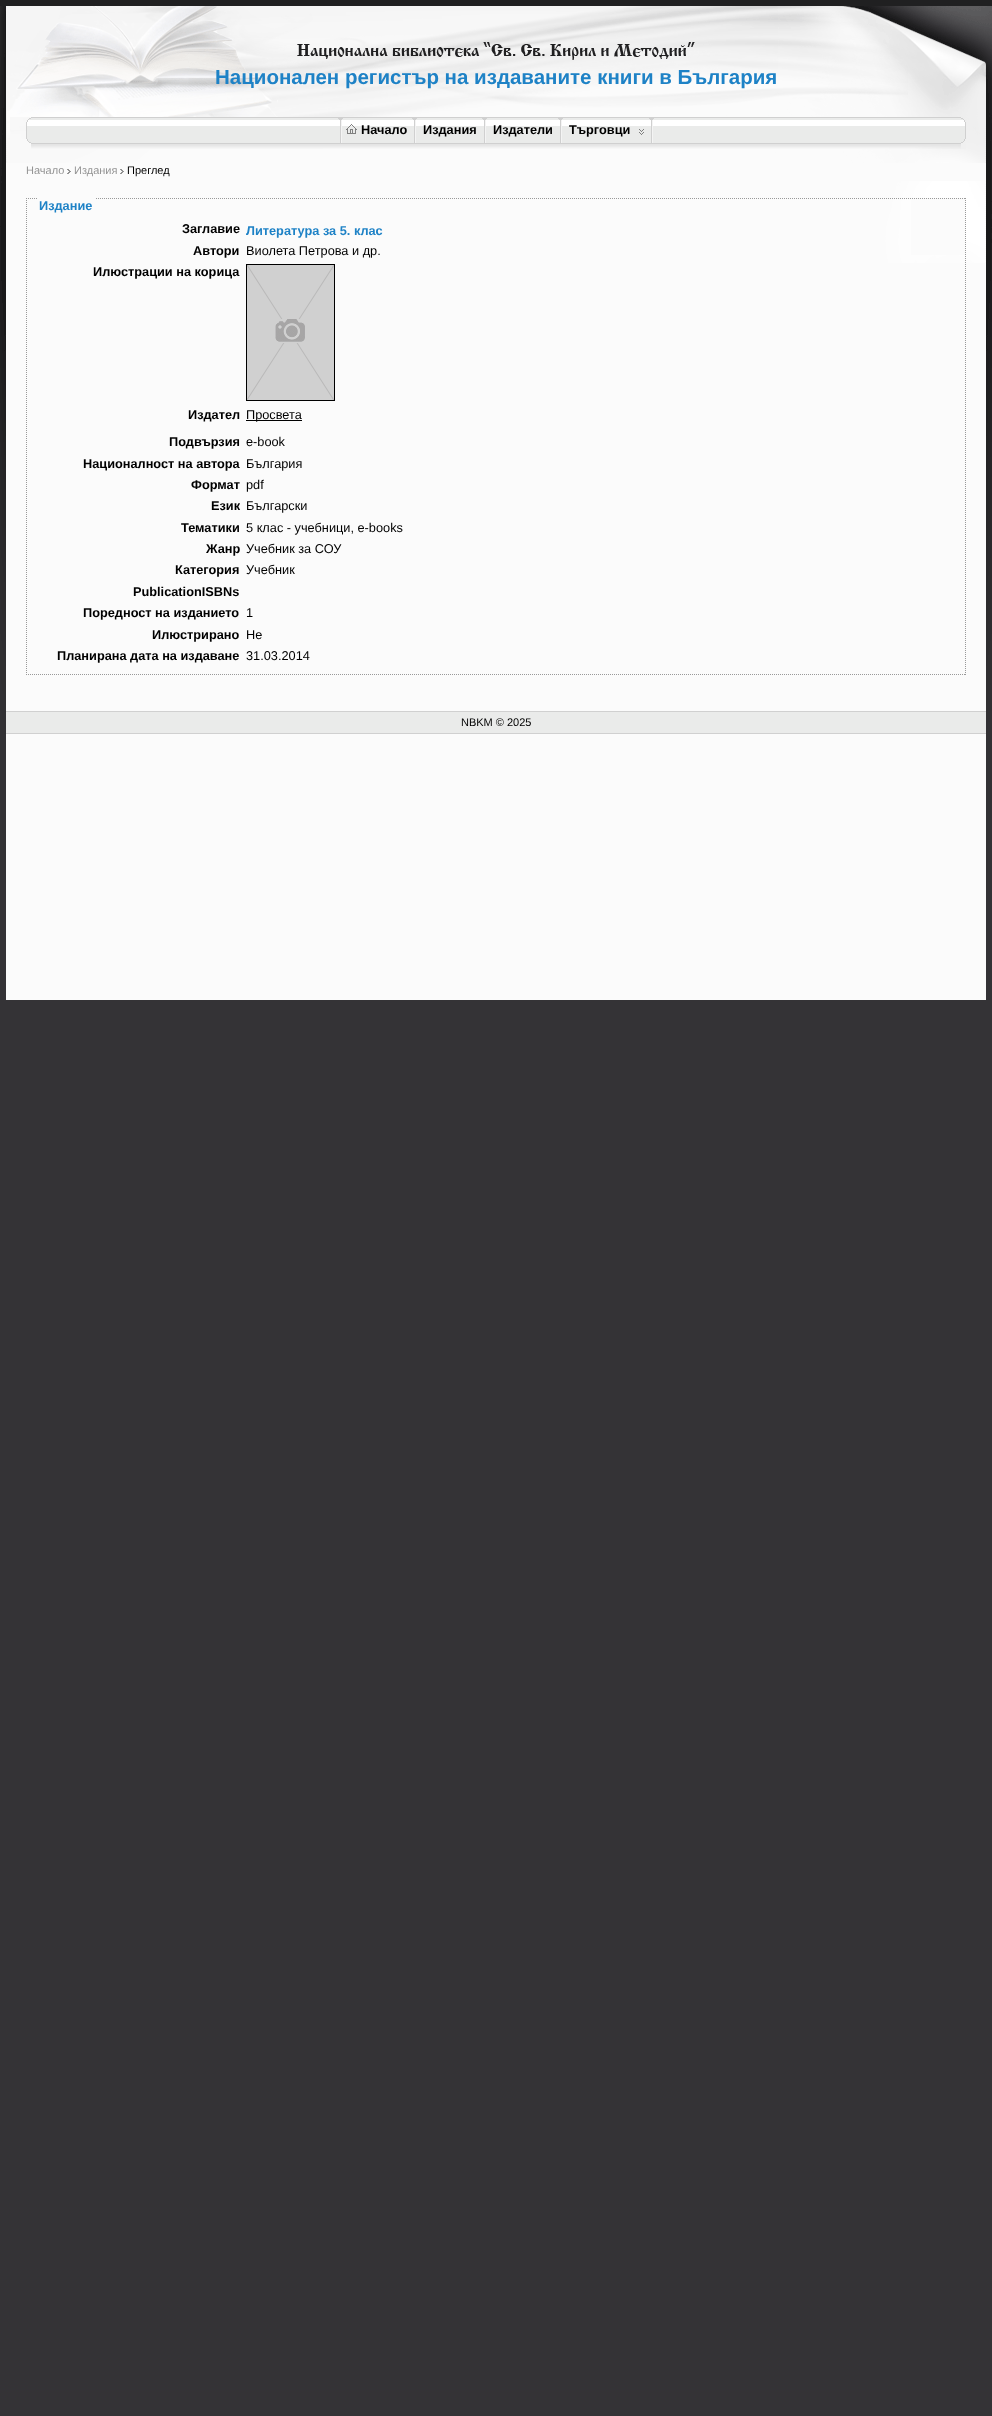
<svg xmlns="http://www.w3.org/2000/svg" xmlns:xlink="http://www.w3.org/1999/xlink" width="992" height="2416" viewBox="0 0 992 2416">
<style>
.cls-1{font:bold 20.5px Liberation Sans;fill:#1e82c6}
.cls-2{font:bold 12.75px Liberation Sans;fill:#000000}
.cls-3{font:11px Liberation Sans;fill:#949494}
.cls-4{font:11px Liberation Sans;fill:#000000}
.cls-5{font:bold 12.75px Liberation Sans;fill:#1e82c6}
.cls-6{font:12.75px Liberation Sans;fill:#000000}
</style>
<rect width="100%" height="100%" fill="#343336"/>
<image xlink:href="image0.png" x="0" y="0" width="992" height="1000"/>
<image xlink:href="image1.png" x="26" y="117" width="940" height="32"/>
<image xlink:href="image2.png" x="338" y="118" width="5" height="25"/>
<image xlink:href="image2.png" x="412" y="118" width="5" height="25"/>
<image xlink:href="image3.png" x="346" y="124" width="11" height="10"/>
<image xlink:href="image2.png" x="482" y="118" width="5" height="25"/>
<image xlink:href="image2.png" x="558" y="118" width="5" height="25"/>
<image xlink:href="image2.png" x="649" y="118" width="5" height="25"/>
<image xlink:href="image4.png" x="639" y="129" width="5" height="6"/>
<rect fill="#fbfbfb" x="6" y="163" width="980" height="18"/>
<image xlink:href="image5.png" x="67" y="169" width="4" height="5"/>
<image xlink:href="image5.png" x="120" y="169" width="4" height="5"/>
<rect fill="#fbfbfb" x="911" y="198" width="55" height="57"/>
<path fill="none" stroke="#999999" stroke-dasharray="1 1" d="M26 198.5H966"/>
<path fill="none" stroke="#999999" stroke-dasharray="1 1" d="M965.5 198V675"/>
<path fill="none" stroke="#999999" stroke-dasharray="1 1" d="M26 674.5H966"/>
<path fill="none" stroke="#999999" stroke-dasharray="1 1" d="M26.5 198V675"/>
<rect fill="#fbfbfb" x="38" y="198" width="57" height="1"/>
<rect fill="none" stroke="#000000" x="246.5" y="264.5" width="88" height="136"/>
<image xlink:href="image6.png" x="247" y="265" width="87" height="135"/>
<rect fill="#000000" x="246" y="420" width="56" height="1"/>
<rect fill="#eaebea" x="6" y="712" width="980" height="21"/>
<rect fill="#d0d0d0" x="6" y="711" width="980" height="1"/>
<rect fill="#d0d0d0" x="6" y="733" width="980" height="1"/>
<text class="cls-1" x="215" y="84">Национален регистър на издаваните книги в България</text>
<text class="cls-2" x="361" y="134">Начало</text>
<text class="cls-2" x="423" y="134">Издания</text>
<text class="cls-2" x="493" y="134">Издатели</text>
<text class="cls-2" x="569" y="134">Търговци</text>
<text class="cls-3" x="26" y="174">Начало</text>
<text class="cls-3" x="74" y="174">Издания</text>
<text class="cls-4" x="127" y="174">Преглед</text>
<text class="cls-5" x="39" y="210">Издание</text>
<text class="cls-2" x="182" y="233">Заглавие</text>
<text class="cls-5" x="246" y="235">Литература за 5. клас</text>
<text class="cls-2" x="193" y="255">Автори</text>
<text class="cls-6" x="246" y="255">Виолета Петрова и др.</text>
<text class="cls-2" x="93" y="276">Илюстрации на корица</text>
<text class="cls-2" x="188" y="419">Издател</text>
<text class="cls-6" x="246" y="419">Просвета</text>
<text class="cls-2" x="169" y="446">Подвързия</text>
<text class="cls-6" x="246" y="446">e-book</text>
<text class="cls-2" x="83" y="468">Националност на автора</text>
<text class="cls-6" x="246" y="468">България</text>
<text class="cls-2" x="191" y="489">Формат</text>
<text class="cls-6" x="246" y="489">pdf</text>
<text class="cls-2" x="211" y="510">Език</text>
<text class="cls-6" x="246" y="510">Български</text>
<text class="cls-2" x="181" y="532">Тематики</text>
<text class="cls-6" x="246" y="532">5 клас - учебници, e-books</text>
<text class="cls-2" x="206" y="553">Жанр</text>
<text class="cls-6" x="246" y="553">Учебник за СОУ</text>
<text class="cls-2" x="175" y="574">Категория</text>
<text class="cls-6" x="246" y="574">Учебник</text>
<text class="cls-2" x="133" y="596">PublicationISBNs</text>
<text class="cls-2" x="83" y="617">Поредност на изданието</text>
<text class="cls-6" x="246" y="617">1</text>
<text class="cls-2" x="152" y="639">Илюстрирано</text>
<text class="cls-6" x="246" y="639">Не</text>
<text class="cls-2" x="57" y="660">Планирана дата на издаване</text>
<text class="cls-6" x="246" y="660">31.03.2014</text>
<text class="cls-4" x="461" y="726">NBKM © 2025</text>
</svg>
